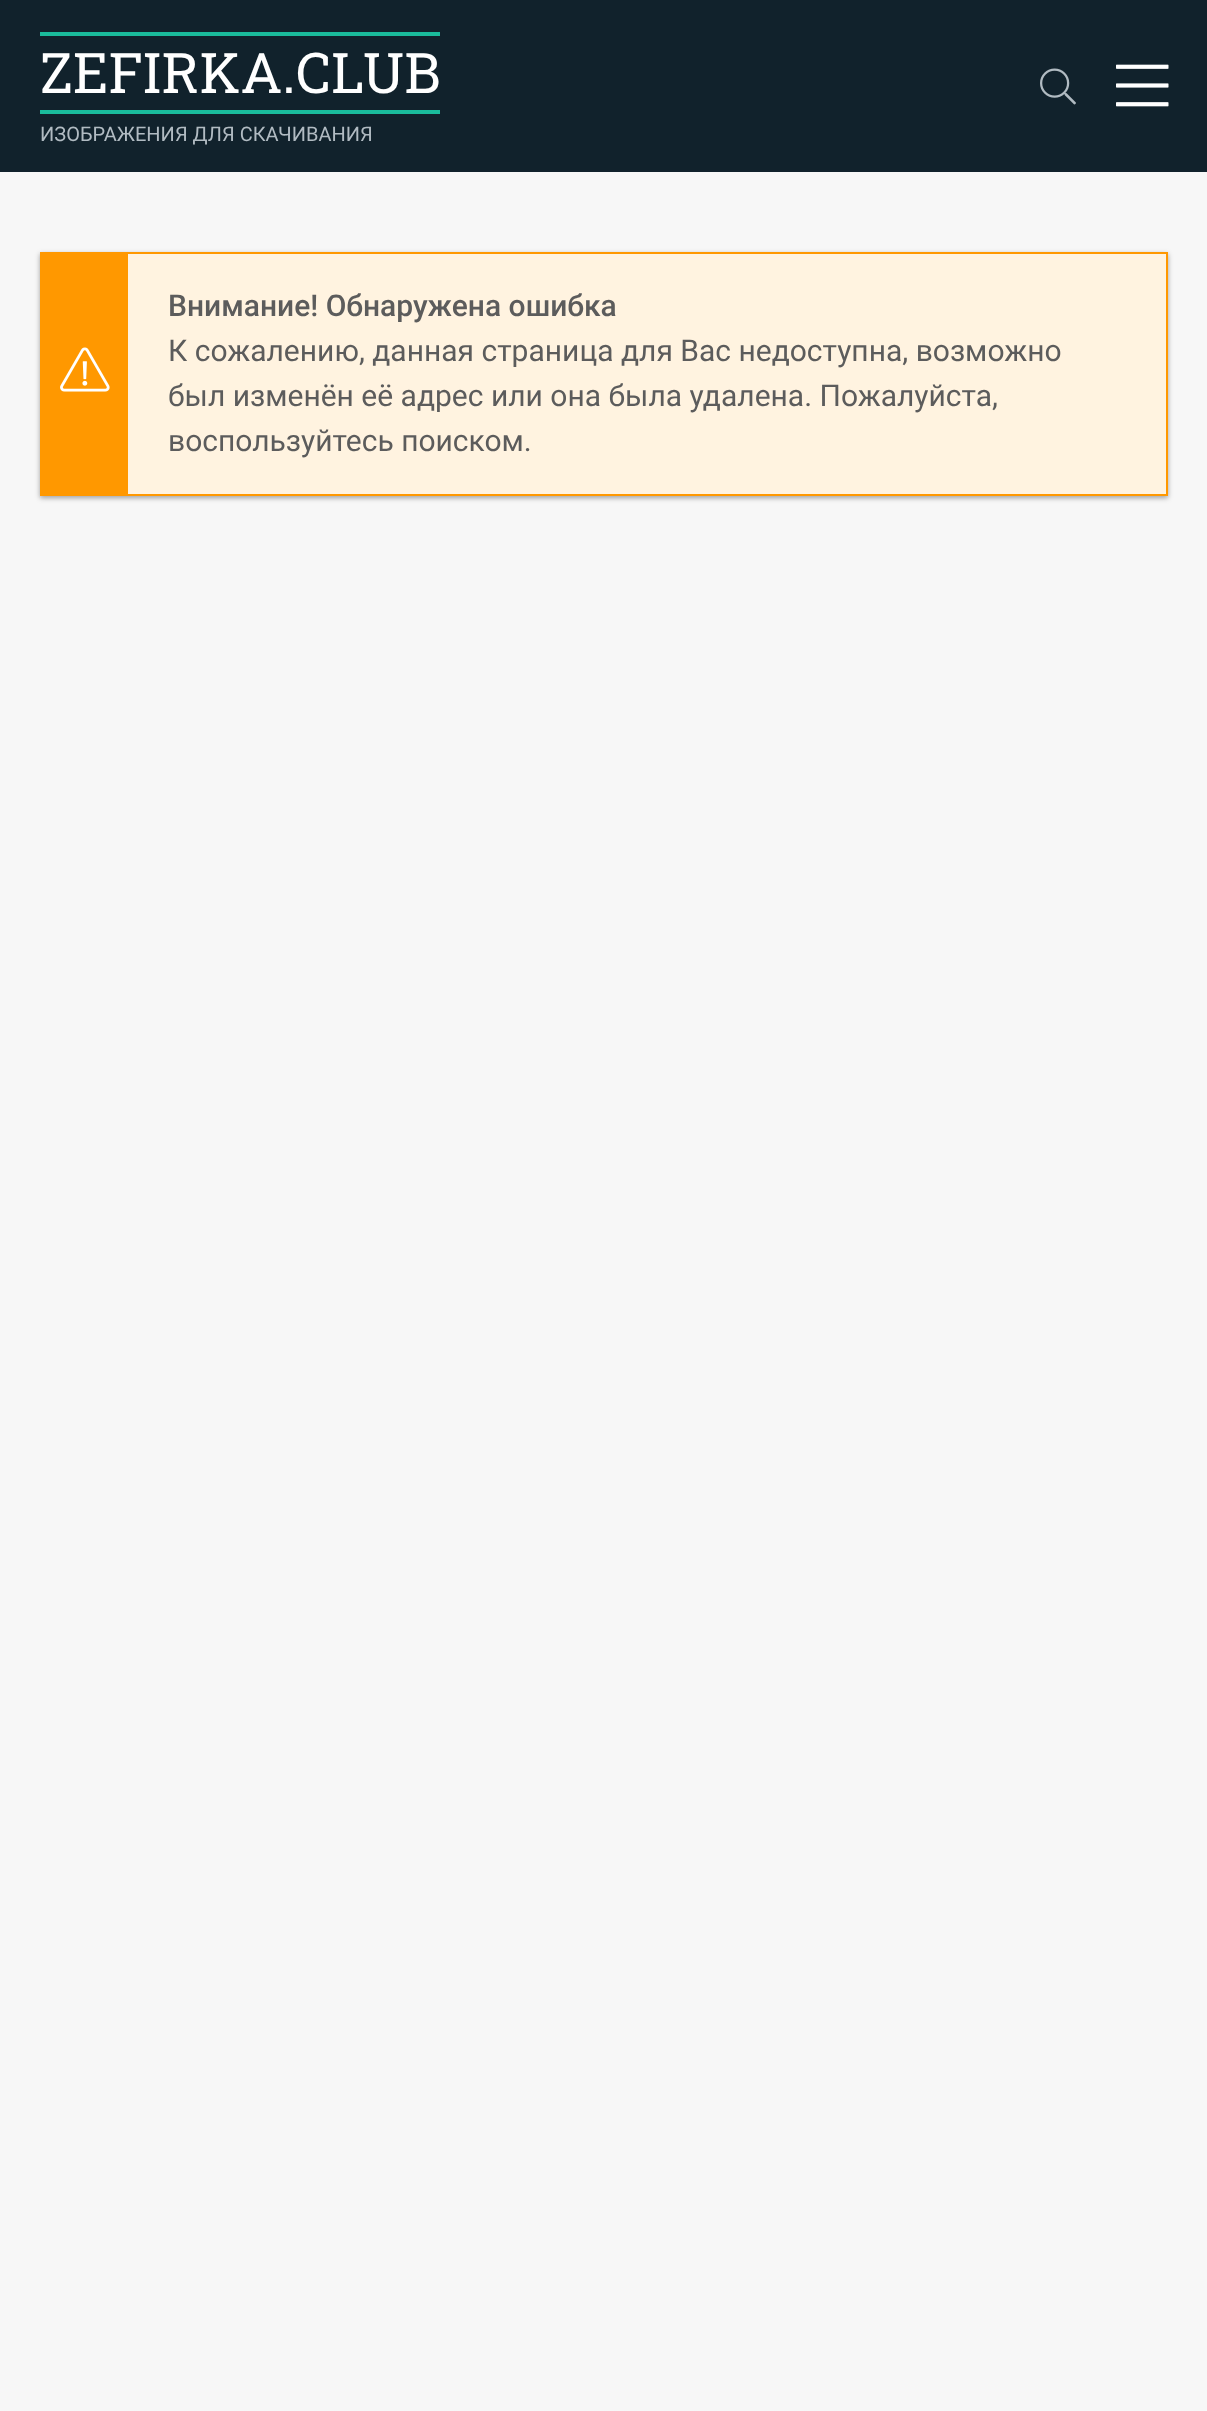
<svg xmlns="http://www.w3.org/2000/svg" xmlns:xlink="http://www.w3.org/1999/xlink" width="1207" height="2411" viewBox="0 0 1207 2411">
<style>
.cls-1{font:56px Roboto Slab;fill:#ffffff}
.cls-2{font:20px Roboto;fill:#b1bbc2}
.cls-3{font:500 30px Roboto;fill:#5c5c5c}
.cls-4{font:30px Roboto;fill:#5c5c5c}
</style>
<rect width="100%" height="100%" fill="#f7f7f7"/>
<rect fill="#11222c" x="0" y="0" width="1207" height="172"/>
<rect fill="#1abc9c" x="40" y="32" width="400" height="4"/>
<rect fill="#1abc9c" x="40" y="110" width="400" height="4"/>
<image xlink:href="image0.png" x="1040" y="68" width="36" height="37"/>
<image xlink:href="image1.png" x="1116" y="64" width="53" height="43"/>
<rect fill="#000000" fill-opacity="0.24" filter="blur(2px)" x="40" y="254" width="1128" height="244"/>
<rect fill="#000000" fill-opacity="0.12" filter="blur(3px)" x="40" y="254" width="1128" height="244"/>
<rect fill="#fff3e0" x="128" y="254" width="1038" height="240"/>
<rect fill="#ff9800" x="128" y="252" width="1040" height="2"/>
<rect fill="#ff9800" x="1166" y="252" width="2" height="244"/>
<rect fill="#ff9800" x="128" y="494" width="1040" height="2"/>
<rect fill="#ff9800" x="40" y="252" width="88" height="244"/>
<image xlink:href="image2.png" x="60" y="347" width="50" height="45"/>
<text class="cls-1" x="40" y="93">ZEFIRKA.CLUB</text>
<text class="cls-2" x="40" y="141">ИЗОБРАЖЕНИЯ ДЛЯ СКАЧИВАНИЯ</text>
<text class="cls-3" x="168" y="316">Внимание! Обнаружена ошибка</text>
<text class="cls-4"><tspan x="168" y="361">К сожалению, данная страница для Вас недоступна, возможно</tspan><tspan x="168" y="406">был изменён её адрес или она была удалена. Пожалуйста,</tspan><tspan x="168" y="451">воспользуйтесь поиском.</tspan></text>
</svg>
